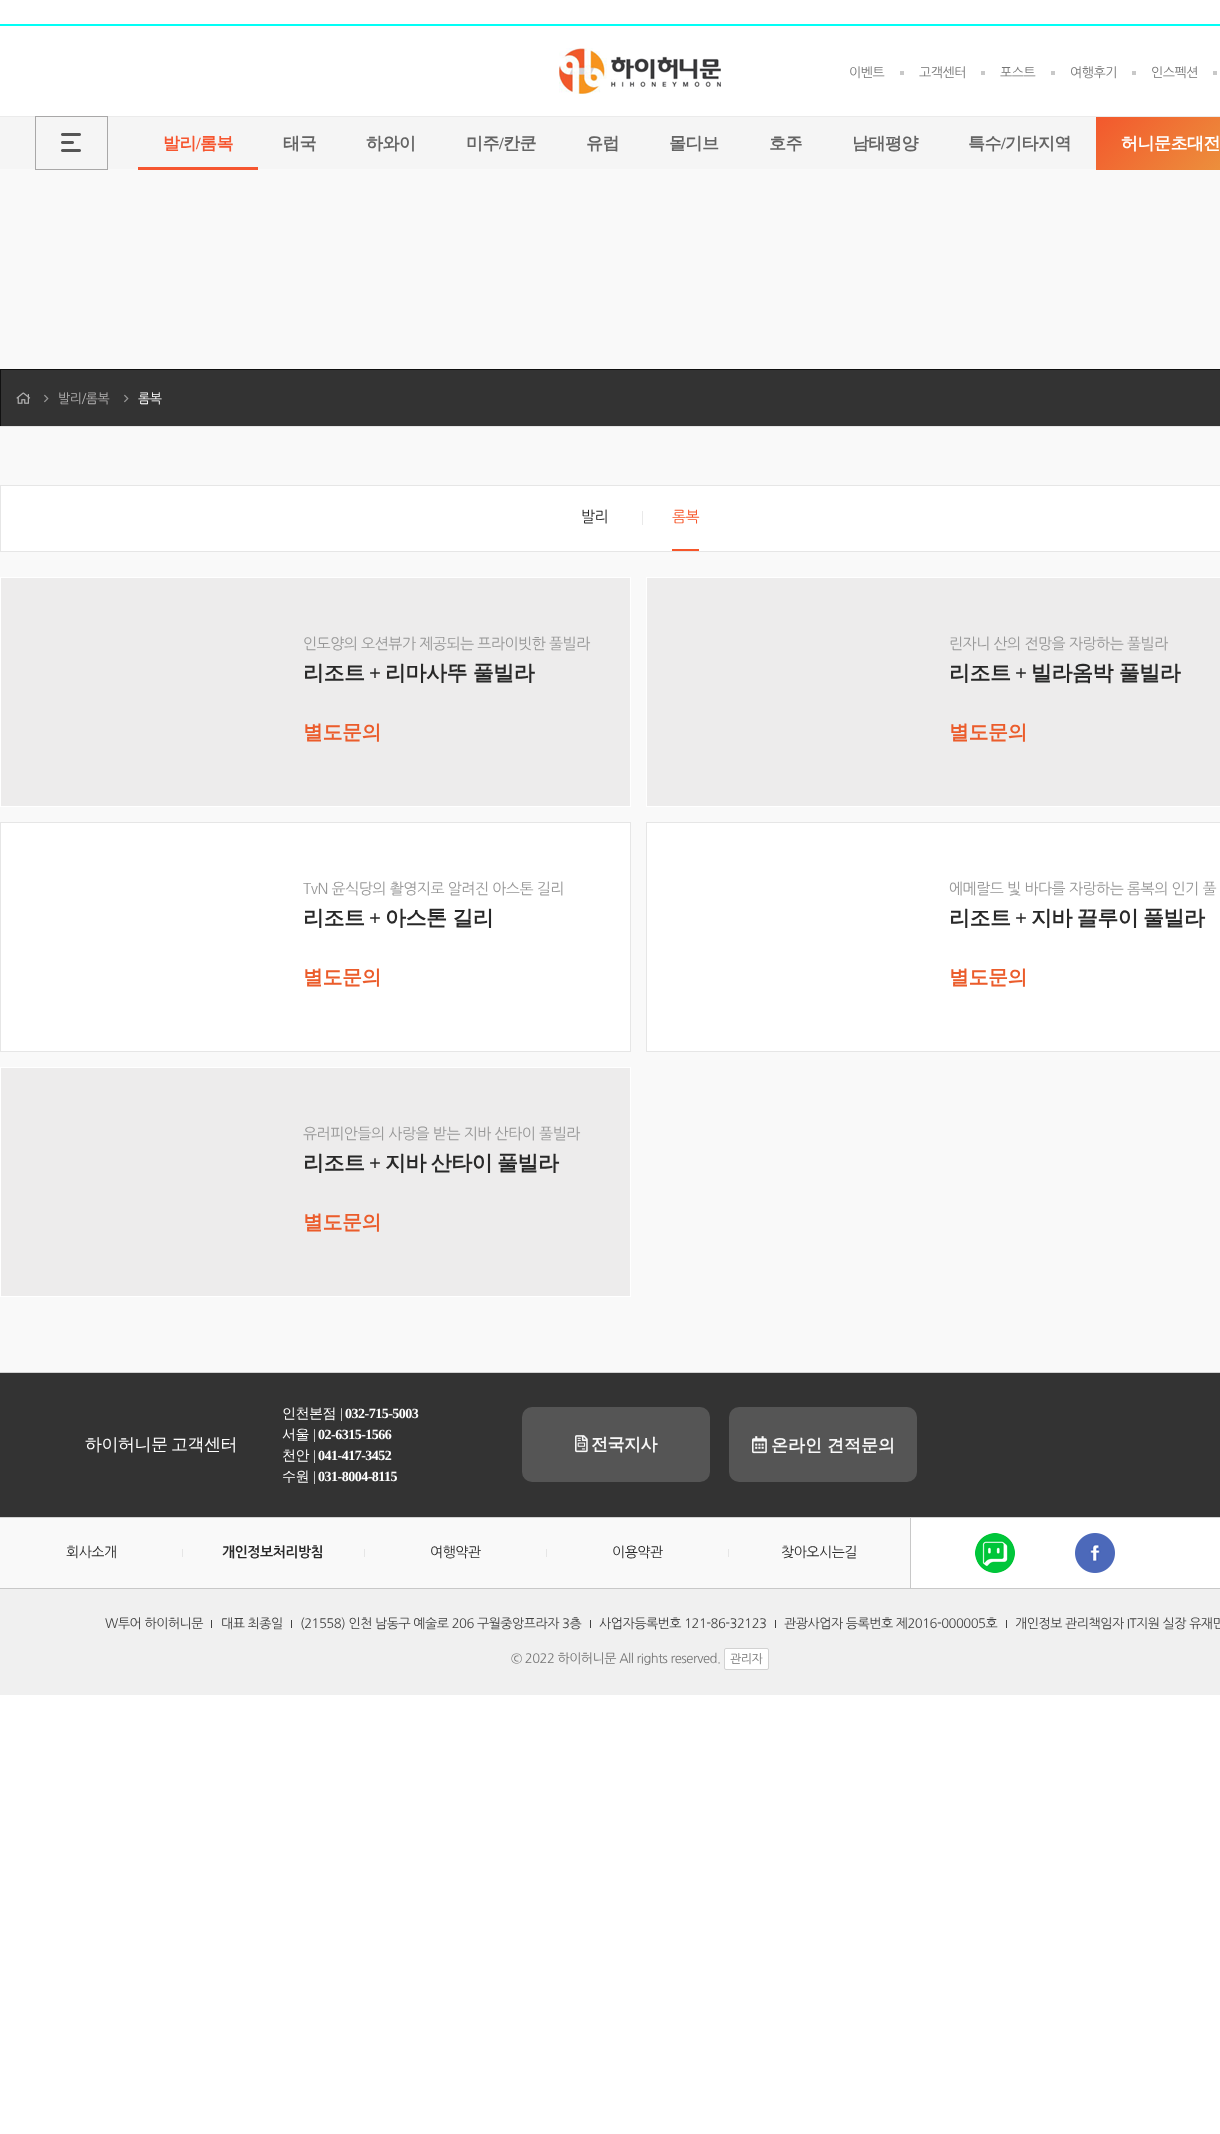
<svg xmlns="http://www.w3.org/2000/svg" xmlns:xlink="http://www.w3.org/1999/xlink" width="1220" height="2134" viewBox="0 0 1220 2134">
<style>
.cls-1{font:13px NanumGothic;letter-spacing:-0.5px;fill:#767676}
.cls-2{font:bold 17px WenQuanYi Zen Hei;letter-spacing:-0.5px;fill:#f65630}
.cls-3{font:bold 17px Liberation Serif;letter-spacing:-0.5px;fill:#f65630}
.cls-4{font:bold 17px WenQuanYi Zen Hei;letter-spacing:-0.5px;fill:#646464}
.cls-5{font:bold 17px Liberation Serif;letter-spacing:-0.5px;fill:#646464}
.cls-6{font:bold 17px WenQuanYi Zen Hei;letter-spacing:-0.5px;fill:#ffffff}
.cls-7{font:13px NanumGothic;letter-spacing:-0.5px;fill:#b2b1b1}
.cls-8{font:13px NanumGothic;letter-spacing:-0.5px;fill:#ffffff}
.cls-9{font:15px NanumGothic;letter-spacing:-0.5px;fill:#282828}
.cls-10{font:15px NanumGothic;letter-spacing:-0.5px;fill:#f6562a}
.cls-11{font:15px NanumGothic;letter-spacing:-0.5px;fill:#979797}
.cls-12{font:bold 21px WenQuanYi Zen Hei;letter-spacing:-0.5px;fill:#282828}
.cls-13{font:bold 21px Liberation Serif;letter-spacing:-0.5px;fill:#282828}
.cls-14{font:bold 20px WenQuanYi Zen Hei;letter-spacing:-0.5px;fill:#eb5c2b}
.cls-15{font:500 17px WenQuanYi Zen Hei;letter-spacing:-0.5px;fill:#ffffff}
.cls-16{font:500 14px WenQuanYi Zen Hei;letter-spacing:-0.5px;fill:#ffffff}
.cls-17{font:14px Liberation Serif;letter-spacing:-0.5px;fill:#ffffff}
.cls-18{font:bold 14px Liberation Serif;letter-spacing:-0.5px;fill:#ffffff}
.cls-19{font:bold 17px WenQuanYi Zen Hei;letter-spacing:-0.5px;fill:#f7f7f7}
.cls-20{font:bold 17px WenQuanYi Zen Hei;fill:#f7f7f7}
.cls-21{font:14px NanumGothic;letter-spacing:-0.5px;fill:#282828}
.cls-22{font:bold 14px NanumGothic;letter-spacing:-0.5px;fill:#282828}
.cls-23{font:13px NanumGothic;letter-spacing:-0.5px;fill:#404040}
.cls-24{font:12px NanumGothic;letter-spacing:-0.5px;fill:#767676}
</style>
<defs>
<linearGradient id="g1" gradientUnits="userSpaceOnUse" x1="1120" y1="93" x2="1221" y2="194"><stop offset="0" stop-color="#f3582d"/><stop offset="1" stop-color="#eb973e"/></linearGradient>
</defs>
<rect width="100%" height="100%" fill="#ffffff"/>
<rect fill="#02fff6" x="0" y="24" width="1220" height="2"/>
<image xlink:href="image0.png" x="559" y="48" width="162" height="46"/>
<rect fill="#c8c8c8" x="900" y="71" width="4" height="4"/>
<rect fill="#c8c8c8" x="981" y="71" width="4" height="4"/>
<rect fill="#c8c8c8" x="1051" y="71" width="4" height="4"/>
<rect fill="#c8c8c8" x="1132" y="71" width="4" height="4"/>
<rect fill="#c8c8c8" x="1213" y="71" width="4" height="4"/>
<rect fill="#f5f5f5" x="0" y="117" width="1096" height="52"/>
<rect fill="#ebebeb" x="0" y="116" width="1220" height="1"/>
<image xlink:href="image1.png" x="61" y="133" width="20" height="19"/>
<rect fill="#f9f9f9" x="0" y="169" width="1220" height="1203"/>
<rect fill="none" stroke="#a9a8a8" x="35.5" y="116.5" width="72" height="53"/>
<rect fill="#f65630" x="138" y="167" width="120" height="3"/>
<rect fill="url(#g1)" x="1096" y="117" width="124" height="53"/>
<rect fill="#333333" x="1" y="370" width="1219" height="56"/>
<rect fill="#111111" x="0" y="369" width="1220" height="1"/>
<rect fill="#e6e6e6" x="0" y="426" width="1220" height="1"/>
<rect fill="#111111" x="0" y="370" width="1" height="56"/>
<image xlink:href="image2.png" x="16" y="392" width="15" height="12"/>
<image xlink:href="image3.png" x="44" y="394" width="5" height="9"/>
<image xlink:href="image3.png" x="124" y="394" width="5" height="9"/>
<rect fill="#ffffff" stroke="#e6e6e6" x="0.5" y="485.5" width="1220" height="66"/>
<rect fill="#e9e9e9" x="642" y="511" width="1" height="14"/>
<rect fill="#f6562a" x="672" y="549" width="27" height="2"/>
<rect fill="#edecec" stroke="#ffffff" x="0.5" y="577.5" width="630" height="229"/>
<rect fill="#edecec" stroke="#ffffff" x="646.5" y="577.5" width="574" height="229"/>
<rect fill="#ffffff" stroke="#e6e6e6" x="0.5" y="822.5" width="630" height="229"/>
<rect fill="#ffffff" stroke="#e6e6e6" x="646.5" y="822.5" width="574" height="229"/>
<rect fill="#edecec" stroke="#ffffff" x="0.5" y="1067.5" width="630" height="229"/>
<rect fill="#333333" x="0" y="1373" width="1220" height="144"/>
<rect fill="#d2d2d2" x="0" y="1372" width="1220" height="1"/>
<rect fill="#d2d2d2" x="0" y="1517" width="1220" height="1"/>
<rect fill="#555555" x="522" y="1407" width="188" height="75" rx="10"/>
<image xlink:href="image4.png" x="575" y="1435" width="13" height="18"/>
<rect fill="#555555" x="729" y="1407" width="188" height="75" rx="10"/>
<image xlink:href="image5.png" x="752" y="1436" width="15" height="18"/>
<rect fill="#f9f9f9" x="0" y="1518" width="910" height="70"/>
<rect fill="#c8c8c8" x="0" y="1588" width="1220" height="1"/>
<rect fill="#e6e6e6" x="182" y="1549" width="1" height="8"/>
<rect fill="#e6e6e6" x="364" y="1549" width="1" height="8"/>
<rect fill="#e6e6e6" x="546" y="1549" width="1" height="8"/>
<rect fill="#e6e6e6" x="728" y="1549" width="1" height="8"/>
<rect fill="#c8c8c8" x="910" y="1518" width="1" height="70"/>
<image xlink:href="image6.png" x="975" y="1533" width="40" height="40"/>
<image xlink:href="image7.png" x="1075" y="1533" width="40" height="40"/>
<rect fill="#f0f0f0" x="0" y="1589" width="1220" height="106"/>
<rect fill="#404040" x="211" y="1620" width="1" height="8"/>
<rect fill="#404040" x="291" y="1620" width="1" height="8"/>
<rect fill="#404040" x="590" y="1620" width="1" height="8"/>
<rect fill="#404040" x="775" y="1620" width="1" height="8"/>
<rect fill="#404040" x="1006" y="1620" width="1" height="8"/>
<rect fill="#ffffff" stroke="#d2d2d2" x="724.5" y="1648.5" width="44" height="21" rx="1.5"/>
<text class="cls-1" x="849" y="77">이벤트</text>
<text class="cls-1" x="919" y="77">고객센터</text>
<text class="cls-1" x="1000" y="77">포스트</text>
<text class="cls-1" x="1070" y="77">여행후기</text>
<text class="cls-1" x="1151" y="77">인스펙션</text>
<text class="cls-2" x="163" y="149">발리</text>
<text class="cls-3" x="196" y="149">/</text>
<text class="cls-2" x="200" y="149">롬복</text>
<text class="cls-4" x="283" y="149">태국</text>
<text class="cls-4" x="366" y="149">하와이</text>
<text class="cls-4" x="466" y="149">미주</text>
<text class="cls-5" x="499" y="149">/</text>
<text class="cls-4" x="503" y="149">칸쿤</text>
<text class="cls-4" x="586" y="149">유럽</text>
<text class="cls-4" x="669" y="149">몰디브</text>
<text class="cls-4" x="769" y="149">호주</text>
<text class="cls-4" x="852" y="149">남태평양</text>
<text class="cls-4" x="968" y="149">특수</text>
<text class="cls-5" x="1001" y="149">/</text>
<text class="cls-4" x="1005" y="149">기타지역</text>
<text class="cls-6" x="1121" y="149">허니문초대전</text>
<text class="cls-7" x="58" y="403">발리/롬복</text>
<text class="cls-8" x="138" y="403">롬복</text>
<text class="cls-9" x="581" y="522">발리</text>
<text class="cls-10" x="672" y="522">롬복</text>
<text class="cls-11" x="303" y="649">인도양의 오션뷰가 제공되는 프라이빗한 풀빌라</text>
<text class="cls-12" x="303" y="680">리조트</text>
<text class="cls-13" x="369" y="680">+</text>
<text class="cls-12" x="385" y="680">리마사뚜 풀빌라</text>
<text class="cls-14" x="303" y="739">별도문의</text>
<text class="cls-11" x="949" y="649">린자니 산의 전망을 자랑하는 풀빌라</text>
<text class="cls-12" x="949" y="680">리조트</text>
<text class="cls-13" x="1015" y="680">+</text>
<text class="cls-12" x="1031" y="680">빌라옴박 풀빌라</text>
<text class="cls-14" x="949" y="739">별도문의</text>
<text class="cls-11" x="303" y="894">TvN 윤식당의 촬영지로 알려진 아스톤 길리</text>
<text class="cls-12" x="303" y="925">리조트</text>
<text class="cls-13" x="369" y="925">+</text>
<text class="cls-12" x="385" y="925">아스톤 길리</text>
<text class="cls-14" x="303" y="984">별도문의</text>
<text class="cls-11" x="949" y="894">에메랄드 빛 바다를 자랑하는 롬복의 인기 풀</text>
<text class="cls-12" x="949" y="925">리조트</text>
<text class="cls-13" x="1015" y="925">+</text>
<text class="cls-12" x="1031" y="925" word-spacing="-1">지바 끌루이 풀빌라</text>
<text class="cls-14" x="949" y="984">별도문의</text>
<text class="cls-11" x="303" y="1139">유러피안들의 사랑을 받는 지바 산타이 풀빌라</text>
<text class="cls-12" x="303" y="1170">리조트</text>
<text class="cls-13" x="369" y="1170">+</text>
<text class="cls-12" x="385" y="1170" word-spacing="-1">지바 산타이 풀빌라</text>
<text class="cls-14" x="303" y="1229">별도문의</text>
<text class="cls-15" x="85" y="1450" word-spacing="-1">하이허니문 고객센터</text>
<text class="cls-16" x="282" y="1418">인천본점</text>
<text class="cls-17" x="340" y="1418">|</text>
<text class="cls-18" x="345" y="1418">032-715-5003</text>
<text class="cls-16" x="282" y="1439">서울</text>
<text class="cls-17" x="313" y="1439">|</text>
<text class="cls-18" x="318" y="1439">02-6315-1566</text>
<text class="cls-16" x="282" y="1460">천안</text>
<text class="cls-17" x="313" y="1460">|</text>
<text class="cls-18" x="318" y="1460">041-417-3452</text>
<text class="cls-16" x="282" y="1481">수원</text>
<text class="cls-17" x="313" y="1481">|</text>
<text class="cls-18" x="318" y="1481">031-8004-8115</text>
<text class="cls-19" x="591" y="1450">전국지사</text>
<text class="cls-20" x="771" y="1451">온라인 견적문의</text>
<text class="cls-21" x="66" y="1557">회사소개</text>
<text class="cls-22" x="222" y="1557">개인정보처리방침</text>
<text class="cls-21" x="430" y="1557">여행약관</text>
<text class="cls-21" x="612" y="1557">이용약관</text>
<text class="cls-21" x="781" y="1557">찾아오시는길</text>
<text class="cls-23" x="105" y="1628">W투어 하이허니문</text>
<text class="cls-23" x="221" y="1628">대표 최종일</text>
<text class="cls-23" x="300" y="1628">(21558) 인천 남동구 예술로 206 구월중앙프라자 3층</text>
<text class="cls-23" x="599" y="1628">사업자등록번호 121-86-32123</text>
<text class="cls-23" x="784" y="1628">관광사업자 등록번호 제2016-000005호</text>
<text class="cls-23" x="1015" y="1628">개인정보 관리책임자 IT지원 실장 유재민</text>
<text class="cls-1" x="511" y="1663">© 2022 하이허니문 All rights reserved.</text>
<text class="cls-24" x="730" y="1663">관리자</text>
</svg>
